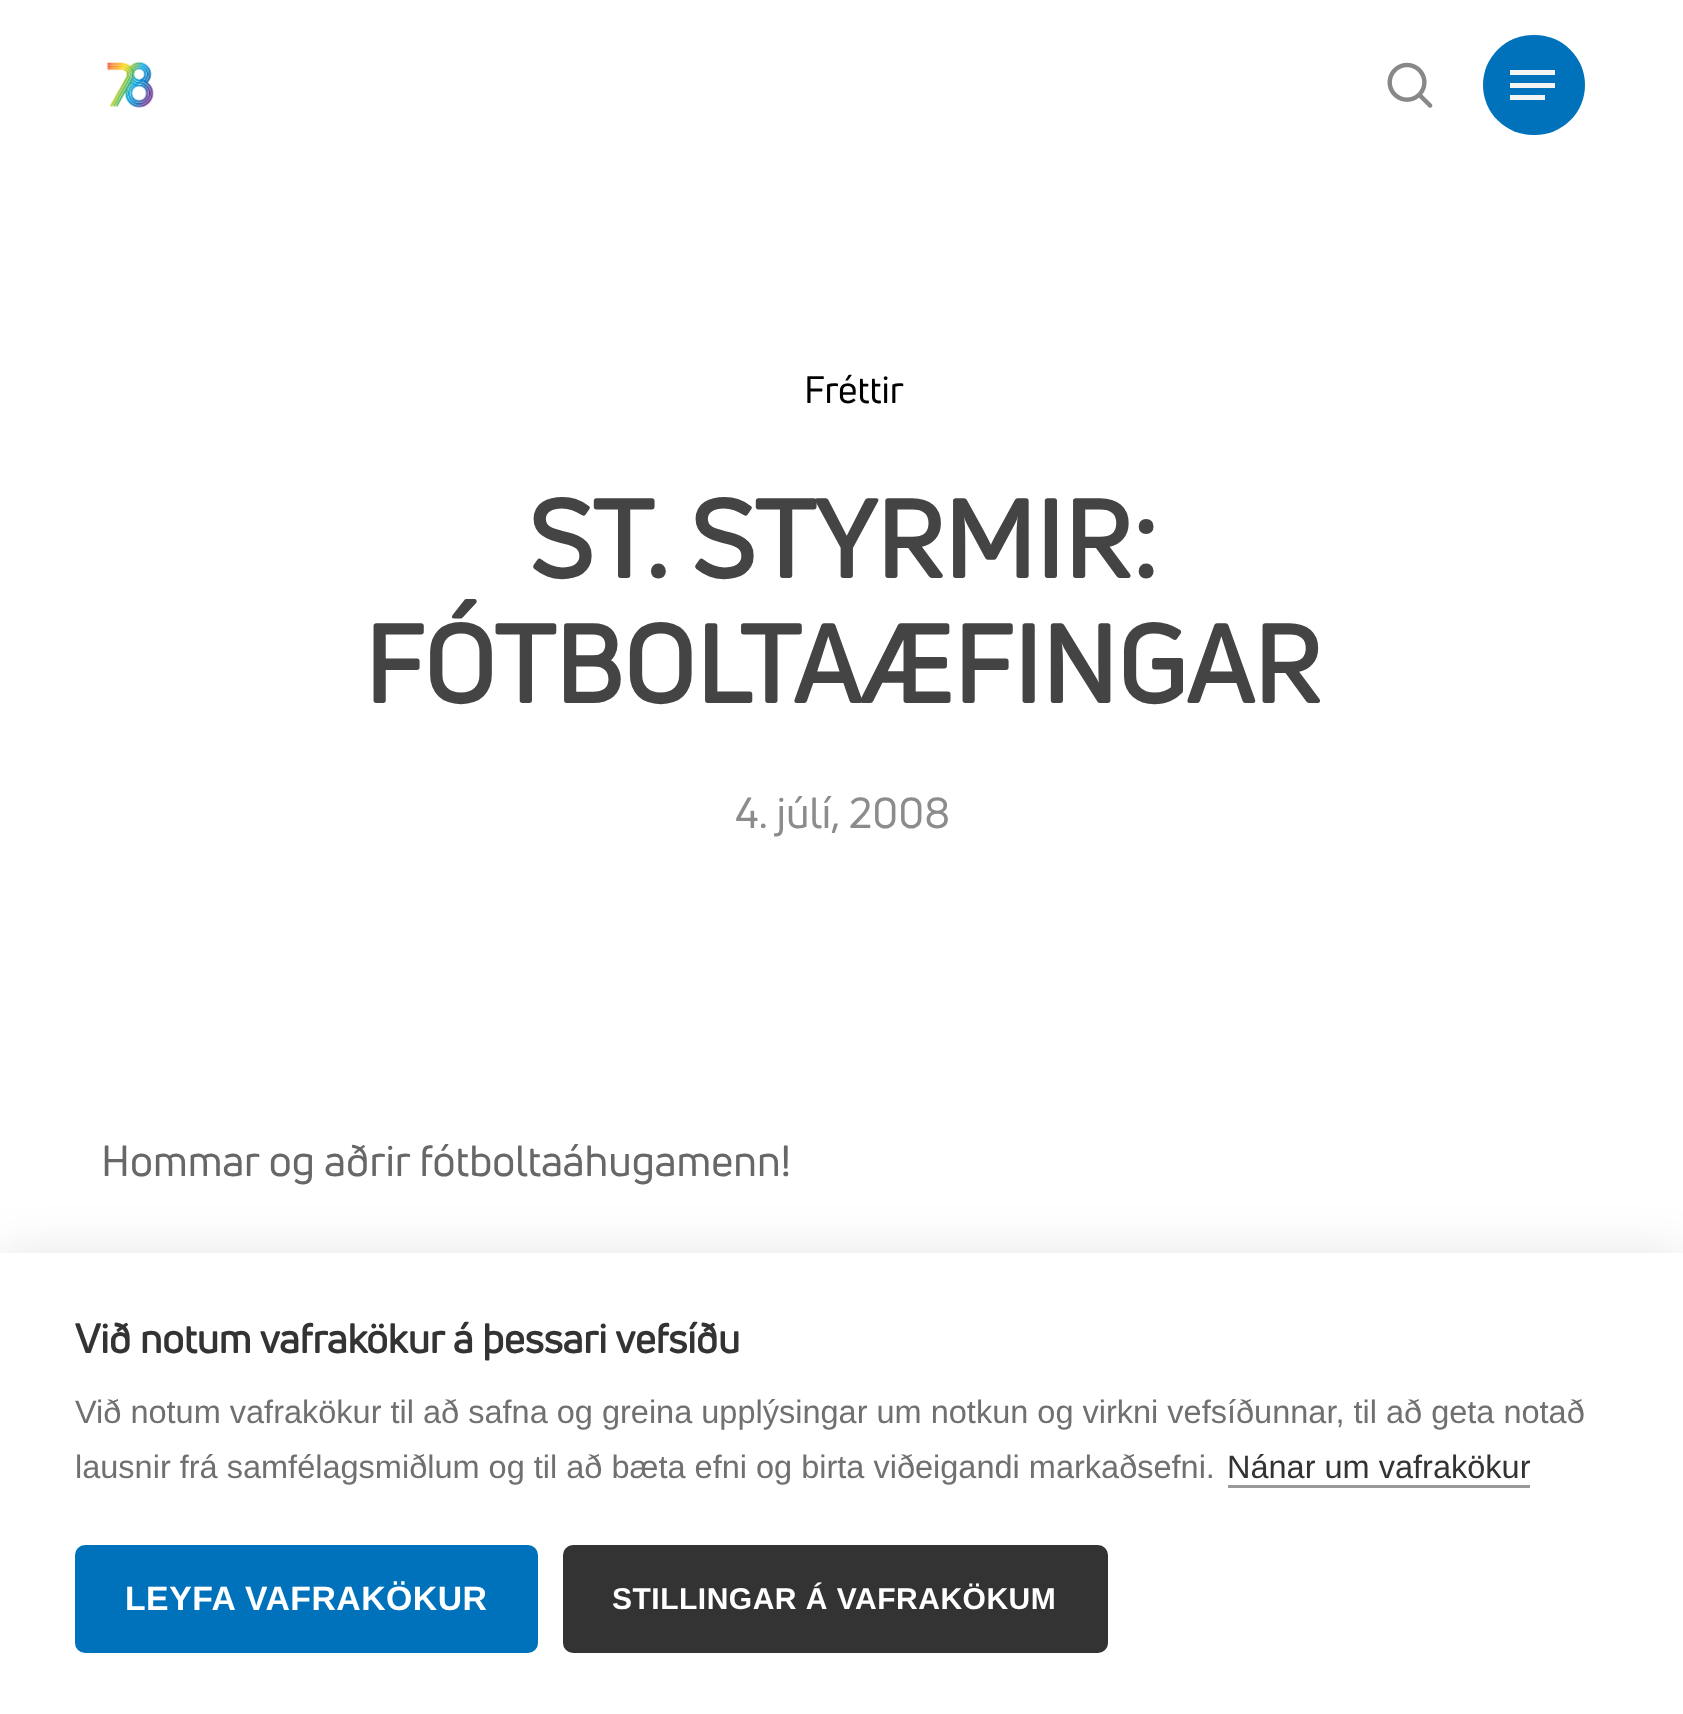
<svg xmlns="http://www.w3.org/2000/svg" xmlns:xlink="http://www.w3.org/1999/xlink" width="1683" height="1714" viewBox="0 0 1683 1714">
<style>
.cls-1{font:37.5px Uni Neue;fill:#000000}
.cls-2{font:bold 107.5px Uni Neue;fill:#444444}
.cls-3{font:42.5px Uni Neue;fill:#8c8c8c}
.cls-4{font:42.5px Uni Neue;fill:#676767}
.cls-5{font:bold 40px Uni Neue;fill:#333333}
.cls-6{font:32.5px Liberation Sans;fill:#707070}
.cls-7{font:32.5px Liberation Sans;fill:#333333}
.cls-8{font:bold 33.75px Liberation Sans;letter-spacing:0.5px;fill:#ffffff}
.cls-9{font:bold 30px Liberation Sans;letter-spacing:0.5px;fill:#ffffff}
</style>
<rect width="100%" height="100%" fill="#ffffff"/>
<image xlink:href="image0.png" x="106" y="61" width="48" height="47"/>
<image xlink:href="image1.png" x="1387" y="62" width="46" height="46"/>
<rect fill="#0072bc" x="1483" y="35" width="102" height="100" rx="50"/>
<rect fill="#f4f4f4" x="1510" y="70" width="45" height="5"/>
<rect fill="#f4f4f4" x="1510" y="95" width="35" height="5"/>
<rect fill="#f4f4f4" x="1510" y="83" width="45" height="5"/>
<rect fill="#000000" fill-opacity="0.1" filter="blur(25px)" x="0" y="1253" width="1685" height="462"/>
<rect fill="#ffffff" x="0" y="1253" width="1683" height="461"/>
<rect fill="#999999" x="1228" y="1485" width="302" height="3"/>
<rect fill="#0072bc" x="75" y="1545" width="463" height="108" rx="10"/>
<rect fill="#333333" x="563" y="1545" width="545" height="108" rx="10"/>
<text class="cls-1" x="804" y="403">Fréttir</text>
<text class="cls-2" x="528" y="578">ST. STYRMIR:</text>
<text class="cls-2" x="364" y="703">FÓTBOLTAÆFINGAR</text>
<text class="cls-3" x="735" y="828">4. júlí, 2008</text>
<text class="cls-4" x="101" y="1176">Hommar og aðrir fótboltaáhugamenn!</text>
<text class="cls-5" x="75" y="1353">Við notum vafrakökur á þessari vefsíðu</text>
<text class="cls-6"><tspan x="75" y="1423">Við notum vafrakökur til að safna og greina upplýsingar um notkun og virkni vefsíðunnar, til að geta notað</tspan><tspan x="75" y="1478">lausnir frá samfélagsmiðlum og til að bæta efni og birta viðeigandi markaðsefni.</tspan></text>
<text class="cls-7" x="1227" y="1478">Nánar um vafrakökur</text>
<text class="cls-8" x="125" y="1610">LEYFA VAFRAKÖKUR</text>
<text class="cls-9" x="612" y="1609">STILLINGAR Á VAFRAKÖKUM</text>
</svg>
